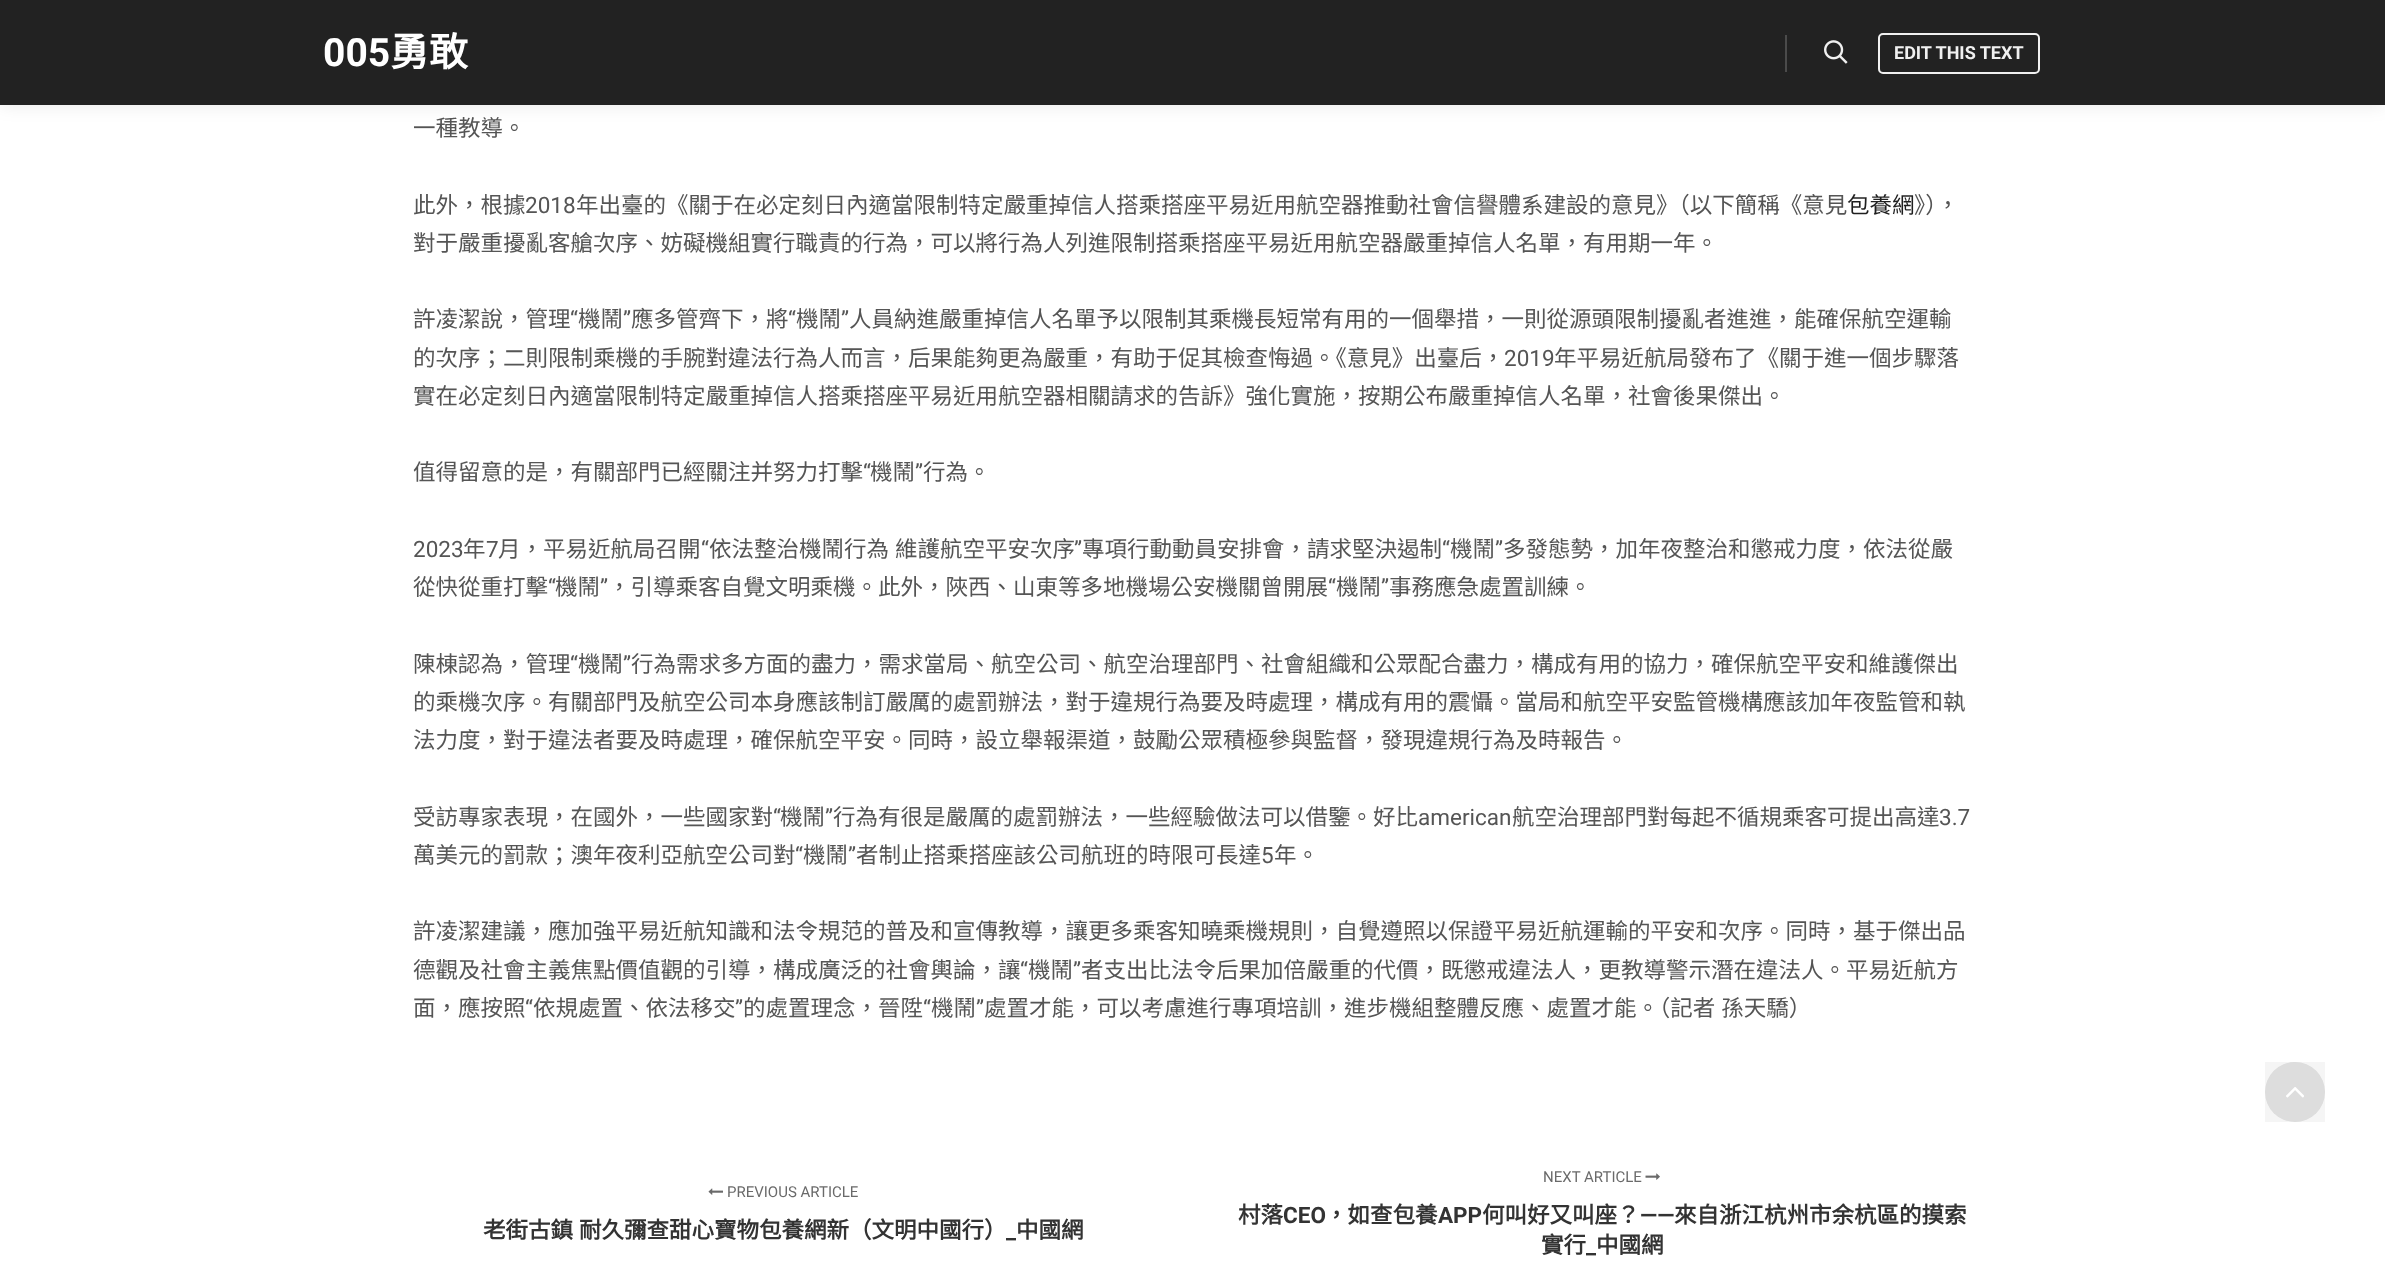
<svg xmlns="http://www.w3.org/2000/svg" xmlns:xlink="http://www.w3.org/1999/xlink" width="2385" height="1271" viewBox="0 0 2385 1271">
<style>
.cls-1{font:bold 39px Roboto;fill:#ffffff}
.cls-2{font:bold 39px Noto Sans CJK TC;fill:#ffffff}
.cls-3{font:bold 18px Roboto;fill:#f0f0f0}
.cls-4{font:22.5px Noto Sans CJK TC;fill:#555555}
.cls-5{font:22.5px Roboto;fill:#555555}
.cls-6{font:22.5px Noto Sans CJK TC;fill:#1f1f1f}
.cls-7{font:15px Roboto;fill:#6a6a6a}
.cls-8{font:bold 22.5px Noto Sans CJK TC;fill:#333333}
.cls-9{font:bold 22.5px Roboto;fill:#333333}
</style>
<rect width="100%" height="100%" fill="#ffffff"/>
<rect fill="#000000" fill-opacity="0.09" filter="blur(9px)" x="0" y="0" width="2385" height="105"/>
<rect fill="#222222" x="0" y="0" width="2385" height="105"/>
<rect fill="#4b4b4b" x="1785" y="35" width="2" height="37"/>
<image xlink:href="image0.png" x="1824" y="40" width="24" height="24"/>
<rect fill="none" stroke="#f0f0f0" stroke-width="2" x="1879" y="34" width="160" height="39" rx="4"/>
<image xlink:href="image1.png" x="708" y="1188" width="15" height="7"/>
<image xlink:href="image2.png" x="1645" y="1173" width="15" height="7"/>
<circle fill="#e6e6e6" cx="2295" cy="1092" r="30"/>
<rect fill="#000000" fill-opacity="0.04" x="2265" y="1062" width="60" height="60"/>
<image xlink:href="image3.png" x="2286" y="1087" width="18" height="11"/>
<text class="cls-1" x="323" y="66">005</text>
<text class="cls-2" x="390" y="66">勇敢</text>
<text class="cls-3" x="1894" y="59">EDIT THIS TEXT</text>
<text class="cls-4" x="413" y="136">一種教導。</text>
<text class="cls-4" x="413" y="213">此外，根據</text>
<text class="cls-5" x="525" y="213">2018</text>
<text class="cls-4" x="576" y="213">年出臺的《關于在必定刻日內適當限制特定嚴重掉信人搭乘搭座平易近用航空器推動社會信譽體系建設的意見》（以下簡稱《意見</text>
<text class="cls-6" x="1847" y="213">包養網</text>
<text class="cls-4" x="1914" y="213">》），</text>
<text class="cls-4" x="413" y="251">對于嚴重擾亂客艙次序、妨礙機組實行職責的行為，可以將行為人列進限制搭乘搭座平易近用航空器嚴重掉信人名單，有用期一年。</text>
<text class="cls-4" x="413" y="327">許凌潔說，管理</text>
<text class="cls-5" x="570" y="327">“</text>
<text class="cls-4" x="578" y="327">機鬧</text>
<text class="cls-5" x="623" y="327">”</text>
<text class="cls-4" x="631" y="327">應多管齊下，將</text>
<text class="cls-5" x="788" y="327">“</text>
<text class="cls-4" x="796" y="327">機鬧</text>
<text class="cls-5" x="841" y="327">”</text>
<text class="cls-4" x="849" y="327">人員納進嚴重掉信人名單予以限制其乘機長短常有用的一個舉措，一則從源頭限制擾亂者進進，能確保航空運輸</text>
<text class="cls-4" x="413" y="366">的次序；二則限制乘機的手腕對違法行為人而言，后果能夠更為嚴重，有助于促其檢查悔過。《意見》出臺后，</text>
<text class="cls-5" x="1504" y="366">2019</text>
<text class="cls-4" x="1554" y="366">年平易近航局發布了《關于進一個步驟落</text>
<text class="cls-4" x="413" y="404">實在必定刻日內適當限制特定嚴重掉信人搭乘搭座平易近用航空器相關請求的告訴》強化實施，按期公布嚴重掉信人名單，社會後果傑出。</text>
<text class="cls-4" x="413" y="480">值得留意的是，有關部門已經關注并努力打擊</text>
<text class="cls-5" x="863" y="480">“</text>
<text class="cls-4" x="870" y="480">機鬧</text>
<text class="cls-5" x="915" y="480">”</text>
<text class="cls-4" x="923" y="480">行為。</text>
<text class="cls-5" x="413" y="557">2023</text>
<text class="cls-4" x="463" y="557">年</text>
<text class="cls-5" x="486" y="557">7</text>
<text class="cls-4" x="498" y="557">月，平易近航局召開</text>
<text class="cls-5" x="701" y="557">“</text>
<text class="cls-4" x="709" y="557" word-spacing="1">依法整治機鬧行為 維護航空平安次序</text>
<text class="cls-5" x="1074" y="557">”</text>
<text class="cls-4" x="1082" y="557">專項行動動員安排會，請求堅決遏制</text>
<text class="cls-5" x="1442" y="557">“</text>
<text class="cls-4" x="1450" y="557">機鬧</text>
<text class="cls-5" x="1495" y="557">”</text>
<text class="cls-4" x="1503" y="557">多發態勢，加年夜整治和懲戒力度，依法從嚴</text>
<text class="cls-4" x="413" y="595">從快從重打擊</text>
<text class="cls-5" x="548" y="595">“</text>
<text class="cls-4" x="555" y="595">機鬧</text>
<text class="cls-5" x="600" y="595">”</text>
<text class="cls-4" x="608" y="595">，引導乘客自覺文明乘機。此外，陜西、山東等多地機場公安機關曾開展</text>
<text class="cls-5" x="1328" y="595">“</text>
<text class="cls-4" x="1336" y="595">機鬧</text>
<text class="cls-5" x="1381" y="595">”</text>
<text class="cls-4" x="1389" y="595">事務應急處置訓練。</text>
<text class="cls-4" x="413" y="672">陳棟認為，管理</text>
<text class="cls-5" x="570" y="672">“</text>
<text class="cls-4" x="578" y="672">機鬧</text>
<text class="cls-5" x="623" y="672">”</text>
<text class="cls-4" x="631" y="672">行為需求多方面的盡力，需求當局、航空公司、航空治理部門、社會組織和公眾配合盡力，構成有用的協力，確保航空平安和維護傑出</text>
<text class="cls-4"><tspan x="413" y="710">的乘機次序。有關部門及航空公司本身應該制訂嚴厲的處罰辦法，對于違規行為要及時處理，構成有用的震懾。當局和航空平安監管機構應該加年夜監管和執</tspan><tspan x="413" y="748">法力度，對于違法者要及時處理，確保航空平安。同時，設立舉報渠道，鼓勵公眾積極參與監督，發現違規行為及時報告。</tspan></text>
<text class="cls-4" x="413" y="825">受訪專家表現，在國外，一些國家對</text>
<text class="cls-5" x="773" y="825">“</text>
<text class="cls-4" x="780" y="825">機鬧</text>
<text class="cls-5" x="825" y="825">”</text>
<text class="cls-4" x="833" y="825">行為有很是嚴厲的處罰辦法，一些經驗做法可以借鑒。好比</text>
<text class="cls-5" x="1418" y="825">american</text>
<text class="cls-4" x="1512" y="825">航空治理部門對每起不循規乘客可提出高達</text>
<text class="cls-5" x="1939" y="825">3.7</text>
<text class="cls-4" x="413" y="863">萬美元的罰款；澳年夜利亞航空公司對</text>
<text class="cls-5" x="795" y="863">“</text>
<text class="cls-4" x="803" y="863">機鬧</text>
<text class="cls-5" x="848" y="863">”</text>
<text class="cls-4" x="856" y="863">者制止搭乘搭座該公司航班的時限可長達</text>
<text class="cls-5" x="1261" y="863">5</text>
<text class="cls-4" x="1274" y="863">年。</text>
<text class="cls-4"><tspan x="413" y="939">許凌潔建議，應加強平易近航知識和法令規范的普及和宣傳教導，讓更多乘客知曉乘機規則，自覺遵照以保證平易近航運輸的平安和次序。同時，基于傑出品</tspan><tspan x="413" y="978">德觀及社會主義焦點價值觀的引導，構成廣泛的社會輿論，讓</tspan></text>
<text class="cls-5" x="1020" y="978">“</text>
<text class="cls-4" x="1028" y="978">機鬧</text>
<text class="cls-5" x="1073" y="978">”</text>
<text class="cls-4" x="1081" y="978">者支出比法令后果加倍嚴重的代價，既懲戒違法人，更教導警示潛在違法人。平易近航方</text>
<text class="cls-4" x="413" y="1016">面，應按照</text>
<text class="cls-5" x="525" y="1016">“</text>
<text class="cls-4" x="533" y="1016">依規處置、依法移交</text>
<text class="cls-5" x="735" y="1016">”</text>
<text class="cls-4" x="743" y="1016">的處置理念，晉陞</text>
<text class="cls-5" x="923" y="1016">“</text>
<text class="cls-4" x="931" y="1016">機鬧</text>
<text class="cls-5" x="976" y="1016">”</text>
<text class="cls-4" x="984" y="1016" word-spacing="1">處置才能，可以考慮進行專項培訓，進步機組整體反應、處置才能。（記者 孫天驕）</text>
<text class="cls-7" x="727" y="1197">PREVIOUS ARTICLE</text>
<text class="cls-8" x="483" y="1238" word-spacing="1">老街古鎮 耐久彌查甜心寶物包養網新（文明中國行）</text>
<text class="cls-9" x="1006" y="1238">_</text>
<text class="cls-8" x="1016" y="1238">中國網</text>
<text class="cls-7" x="1543" y="1182">NEXT ARTICLE</text>
<text class="cls-8" x="1238" y="1223">村落</text>
<text class="cls-9" x="1283" y="1223">CEO</text>
<text class="cls-8" x="1325" y="1223">，如查包養</text>
<text class="cls-9" x="1438" y="1223">APP</text>
<text class="cls-8" x="1482" y="1223">何叫好又叫座？</text>
<text class="cls-9" x="1640" y="1223">——</text>
<text class="cls-8" x="1674" y="1223">來自浙江杭州市余杭區的摸索</text>
<text class="cls-8" x="1541" y="1253">實行</text>
<text class="cls-9" x="1586" y="1253">_</text>
<text class="cls-8" x="1596" y="1253">中國網</text>
</svg>
